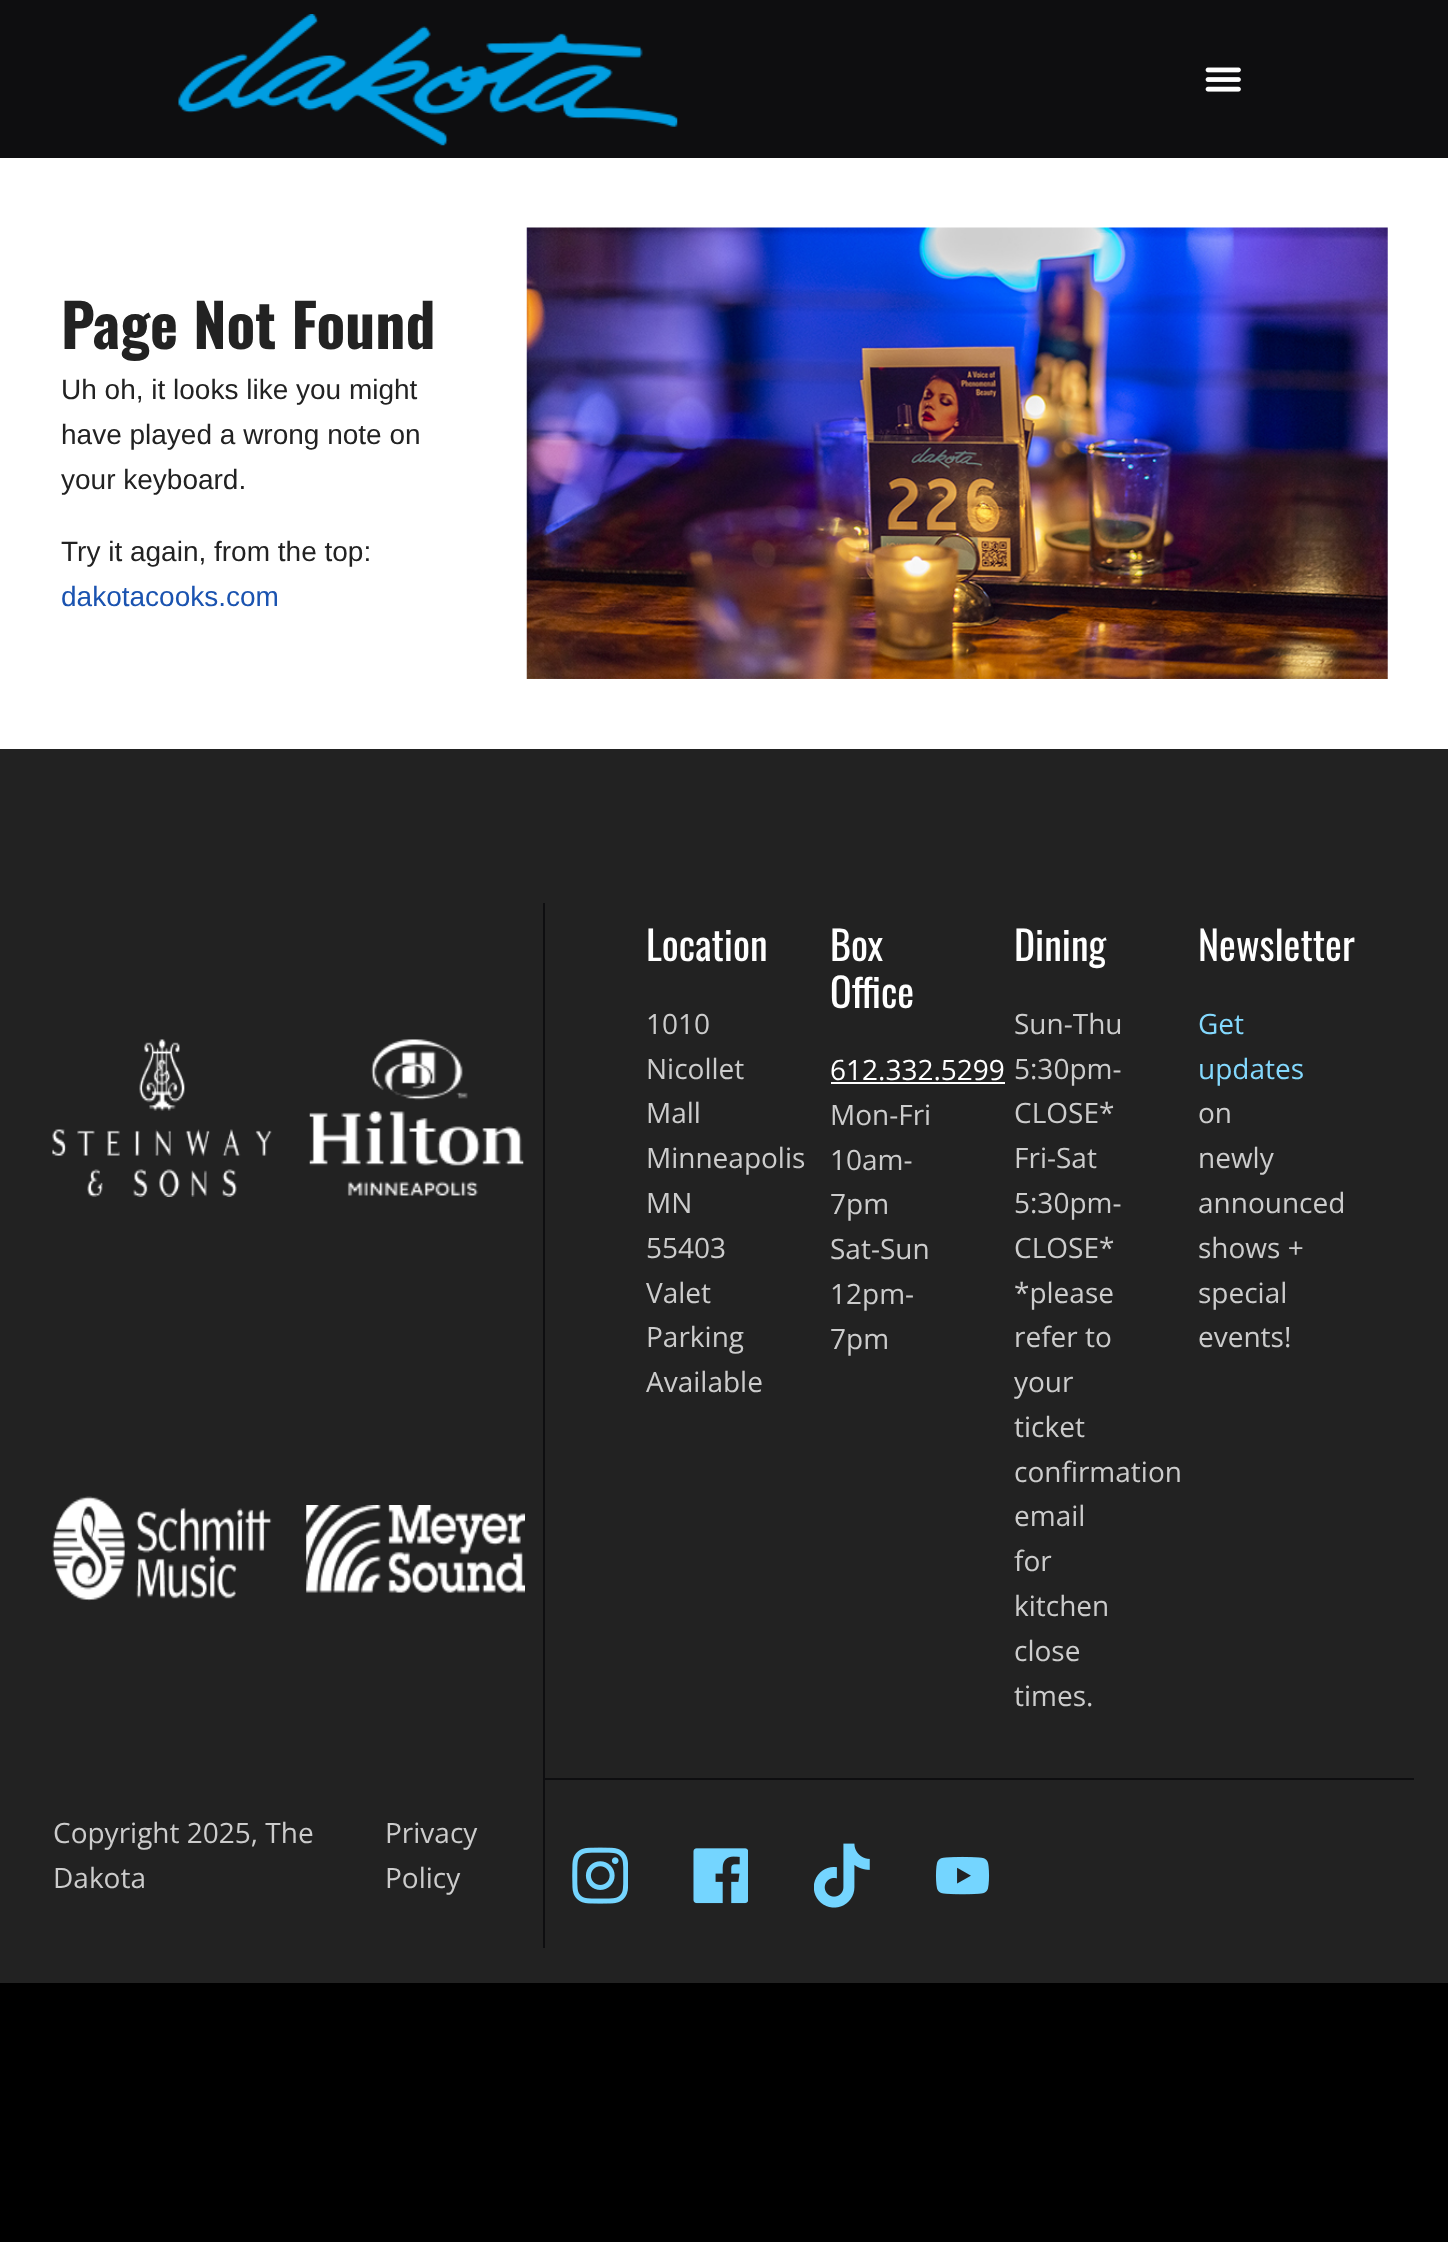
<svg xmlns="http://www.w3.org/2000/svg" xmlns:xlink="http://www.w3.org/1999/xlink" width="1448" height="2242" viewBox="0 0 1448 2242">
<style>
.cls-1{font:bold 59.5px Oswald;fill:#222222}
.cls-2{font:28px Liberation Sans;fill:#222222}
.cls-3{font:28px Liberation Sans;fill:#1a53b0}
.cls-4{font:40px Oswald;fill:#ffffff}
.cls-5{font:28px Open Sans;fill:#cccccc}
.cls-6{font:28px Open Sans;fill:#ffffff}
.cls-7{font:28px Open Sans;fill:#84d9fe}
</style>
<rect width="100%" height="100%" fill="#000000"/>
<rect fill="#0e0e10" x="0" y="0" width="1448" height="158"/>
<image xlink:href="image0.png" x="178" y="14" width="500" height="132"/>
<image xlink:href="image1.png" x="1205" y="67" width="36" height="25"/>
<rect fill="#ffffff" x="0" y="158" width="1448" height="591"/>
<image xlink:href="image2.png" x="526" y="227" width="862" height="452"/>
<rect fill="#222222" x="0" y="749" width="1448" height="1234"/>
<rect fill="#0e0e10" x="543" y="903" width="2" height="1045"/>
<rect fill="#0e0e10" x="544" y="1778" width="870" height="2"/>
<rect fill="#ffffff" x="831" y="1082" width="174" height="2"/>
<image xlink:href="image3.png" x="572" y="1847" width="56" height="57"/>
<image xlink:href="image4.png" x="693" y="1848" width="55" height="56"/>
<image xlink:href="image5.png" x="814" y="1843" width="56" height="65"/>
<image xlink:href="image6.png" x="935" y="1856" width="55" height="39"/>
<image xlink:href="image7.png" x="52" y="1039" width="220" height="158"/>
<image xlink:href="image8.png" x="309" y="1039" width="215" height="157"/>
<image xlink:href="image9.png" x="52" y="1496" width="220" height="105"/>
<image xlink:href="image10.png" x="306" y="1505" width="219" height="88"/>
<text class="cls-1" x="61" y="349">Page Not Found</text>
<text class="cls-2"><tspan x="61" y="399">Uh oh, it looks like you might</tspan><tspan x="61" y="444">have played a wrong note on</tspan><tspan x="61" y="489">your keyboard.</tspan></text>
<text class="cls-2" x="61" y="561">Try it again, from the top:</text>
<text class="cls-3" x="61" y="606">dakotacooks.com</text>
<text class="cls-4" x="646" y="961">Location</text>
<text class="cls-5"><tspan x="646" y="1034">1010</tspan><tspan x="646" y="1079">Nicollet</tspan><tspan x="646" y="1123">Mall</tspan><tspan x="646" y="1168">Minneapolis</tspan><tspan x="646" y="1213">MN</tspan><tspan x="646" y="1258">55403</tspan><tspan x="646" y="1303">Valet</tspan><tspan x="646" y="1347">Parking</tspan><tspan x="646" y="1392">Available</tspan></text>
<text class="cls-4"><tspan x="830" y="961">Box</tspan><tspan x="830" y="1008">Office</tspan></text>
<text class="cls-6" x="830" y="1080">612.332.5299</text>
<text class="cls-5"><tspan x="830" y="1125">Mon-Fri</tspan><tspan x="830" y="1170">10am-</tspan><tspan x="830" y="1214">7pm</tspan><tspan x="830" y="1259">Sat-Sun</tspan><tspan x="830" y="1304">12pm-</tspan><tspan x="830" y="1349">7pm</tspan></text>
<text class="cls-4" x="1014" y="961">Dining</text>
<text class="cls-5"><tspan x="1014" y="1034">Sun-Thu</tspan><tspan x="1014" y="1079">5:30pm-</tspan><tspan x="1014" y="1123">CLOSE*</tspan><tspan x="1014" y="1168">Fri-Sat</tspan><tspan x="1014" y="1213">5:30pm-</tspan><tspan x="1014" y="1258">CLOSE*</tspan><tspan x="1014" y="1303">*please</tspan><tspan x="1014" y="1347">refer to</tspan><tspan x="1014" y="1392">your</tspan><tspan x="1014" y="1437">ticket</tspan><tspan x="1014" y="1482">confirmation</tspan><tspan x="1014" y="1526">email</tspan><tspan x="1014" y="1571">for</tspan><tspan x="1014" y="1616">kitchen</tspan><tspan x="1014" y="1661">close</tspan><tspan x="1014" y="1706">times.</tspan></text>
<text class="cls-4" x="1198" y="961">Newsletter</text>
<text class="cls-7"><tspan x="1198" y="1034">Get</tspan><tspan x="1198" y="1079">updates</tspan></text>
<text class="cls-5"><tspan x="1198" y="1123">on</tspan><tspan x="1198" y="1168">newly</tspan><tspan x="1198" y="1213">announced</tspan><tspan x="1198" y="1258">shows +</tspan><tspan x="1198" y="1303">special</tspan><tspan x="1198" y="1347">events!</tspan></text>
<text class="cls-5"><tspan x="53" y="1843">Copyright 2025, The</tspan><tspan x="53" y="1888">Dakota</tspan></text>
<text class="cls-5"><tspan x="385" y="1843">Privacy</tspan><tspan x="385" y="1888">Policy</tspan></text>
</svg>
